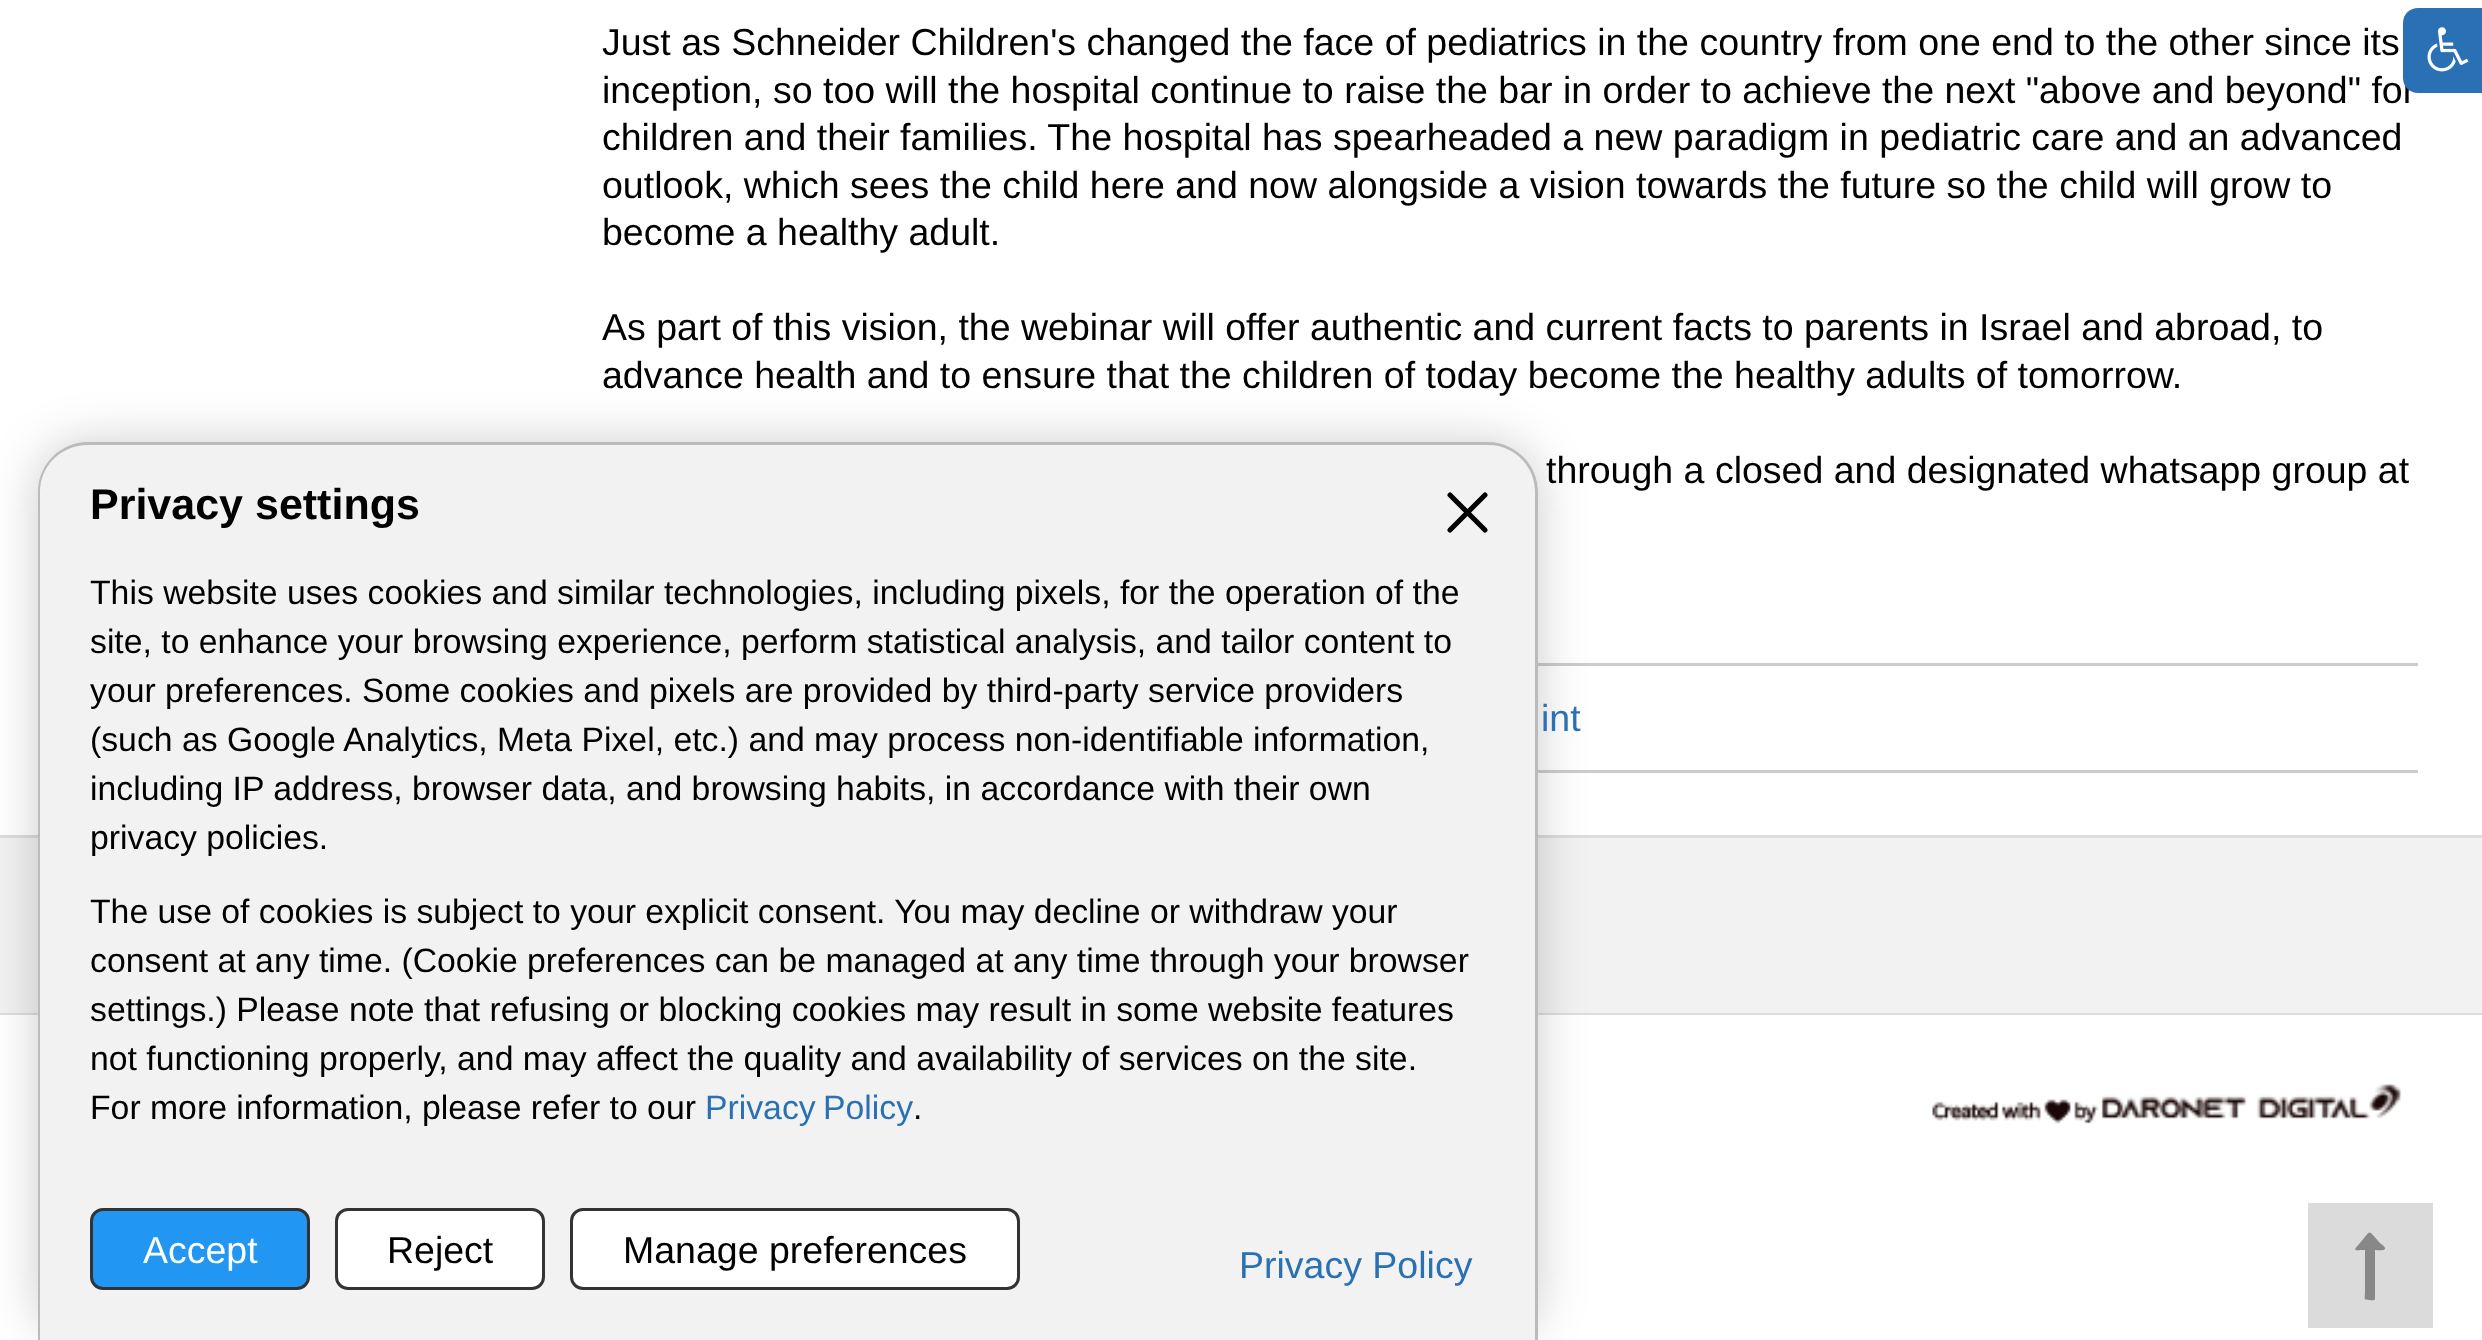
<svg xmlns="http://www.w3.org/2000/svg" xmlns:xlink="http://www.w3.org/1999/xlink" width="2482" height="1340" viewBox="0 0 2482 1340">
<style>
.cls-1{font:37.5px Liberation Sans;fill:#000000}
.cls-2{font:37.5px Liberation Sans;fill:#2a71b4}
.cls-3{font:bold 43px Liberation Sans;fill:#000000}
.cls-4{font:33.75px Liberation Sans;fill:#000000}
.cls-5{font:33.75px Liberation Sans;fill:#2a71b4}
.cls-6{font:37.5px Liberation Sans;fill:#ffffff}
</style>
<rect width="100%" height="100%" fill="#ffffff"/>
<rect fill="#cccccc" x="1538" y="663" width="880" height="3"/>
<rect fill="#cccccc" x="1538" y="770" width="880" height="3"/>
<rect fill="#f2f2f2" x="0" y="838" width="2482" height="175"/>
<rect fill="#dddddd" x="0" y="835" width="2482" height="3"/>
<rect fill="#dddddd" x="0" y="1013" width="2482" height="2"/>
<image xlink:href="image0.png" x="1932" y="1084" width="469" height="40"/>
<rect fill="#dbdbdb" x="2308" y="1203" width="125" height="125"/>
<path fill="#888888" d="M2385 1249C2384 1251 2377 1250 2375 1250V1299C2375 1301 2370 1300 2369 1300C2363 1300 2365 1299 2365 1291V1250C2354 1250 2352 1252 2360 1243C2372 1229 2367 1229 2380 1243C2381 1244 2386 1247 2385 1249Z"/>
<rect fill="#000000" fill-opacity="0.2" filter="blur(25px)" x="38" y="443" width="1500" height="897" rx="50"/>
<path fill="#f2f2f2" d="M88 443H1488C1515.5 443 1538 465.5 1538 493V1340H38V493C38 465.5 60.5 443 88 443Z"/>
<path fill="#bbbbbb" fill-rule="evenodd" d="M88 442H1488C1515 442 1538 465 1538 492V1340H38V492C38 465 60 442 88 442ZM88 445H1488C1514 445 1535 466 1535 492V1340H40V492C40 466 61 445 88 445Z"/>
<path fill="none" stroke="#000000" stroke-width="5" stroke-linecap="round" stroke-linejoin="round" d="M1450 495L1485 530M1450 530L1485 495"/>
<rect fill="#2196f3" stroke="#333333" stroke-width="3" x="91.5" y="1209.5" width="217" height="79" rx="11.5"/>
<rect fill="#ffffff" stroke="#333333" stroke-width="3" x="336.5" y="1209.5" width="207" height="79" rx="11.5"/>
<rect fill="#ffffff" stroke="#333333" stroke-width="3" x="571.5" y="1209.5" width="447" height="79" rx="11.5"/>
<text class="cls-1"><tspan x="602" y="55">Just as Schneider Children's changed the face of pediatrics in the country from one end to the other since its</tspan><tspan x="602" y="103">inception, so too will the hospital continue to raise the bar in order to achieve the next "above and beyond" for</tspan><tspan x="602" y="150">children and their families. The hospital has spearheaded a new paradigm in pediatric care and an advanced</tspan><tspan x="602" y="198">outlook, which sees the child here and now alongside a vision towards the future so the child will grow to</tspan><tspan x="602" y="245">become a healthy adult.</tspan></text>
<text class="cls-1"><tspan x="602" y="340">As part of this vision, the webinar will offer authentic and current facts to parents in Israel and abroad, to</tspan><tspan x="602" y="388">advance health and to ensure that the children of today become the healthy adults of tomorrow.</tspan></text>
<text class="cls-1" x="1546" y="483">through a closed and designated whatsapp group at</text>
<text class="cls-2" x="1541" y="731">int</text>
<path fill="#2a70b5" d="M2418 8H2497V93H2418C2409.5 93 2403 86.5 2403 78V23C2403 14.5 2409.5 8 2418 8Z"/>
<image xlink:href="image1.png" x="2427" y="27" width="42" height="45"/>
<text class="cls-3" x="90" y="519">Privacy settings</text>
<text class="cls-4"><tspan x="90" y="604">This website uses cookies and similar technologies, including pixels, for the operation of the</tspan><tspan x="90" y="653">site, to enhance your browsing experience, perform statistical analysis, and tailor content to</tspan><tspan x="90" y="702">your preferences. Some cookies and pixels are provided by third-party service providers</tspan><tspan x="90" y="751">(such as Google Analytics, Meta Pixel, etc.) and may process non-identifiable information,</tspan><tspan x="90" y="800">including IP address, browser data, and browsing habits, in accordance with their own</tspan><tspan x="90" y="849">privacy policies.</tspan></text>
<text class="cls-4"><tspan x="90" y="923">The use of cookies is subject to your explicit consent. You may decline or withdraw your</tspan><tspan x="90" y="972">consent at any time. (Cookie preferences can be managed at any time through your browser</tspan><tspan x="90" y="1021">settings.) Please note that refusing or blocking cookies may result in some website features</tspan><tspan x="90" y="1070">not functioning properly, and may affect the quality and availability of services on the site.</tspan><tspan x="90" y="1119">For more information, please refer to our</tspan></text>
<text class="cls-5" x="705" y="1119" word-spacing="-2">Privacy Policy</text>
<text class="cls-4" x="913" y="1119">.</text>
<text class="cls-6" x="143" y="1263">Accept</text>
<text class="cls-1" x="387" y="1263">Reject</text>
<text class="cls-1" x="623" y="1263">Manage preferences</text>
<text class="cls-2" x="1239" y="1278">Privacy Policy</text>
</svg>
